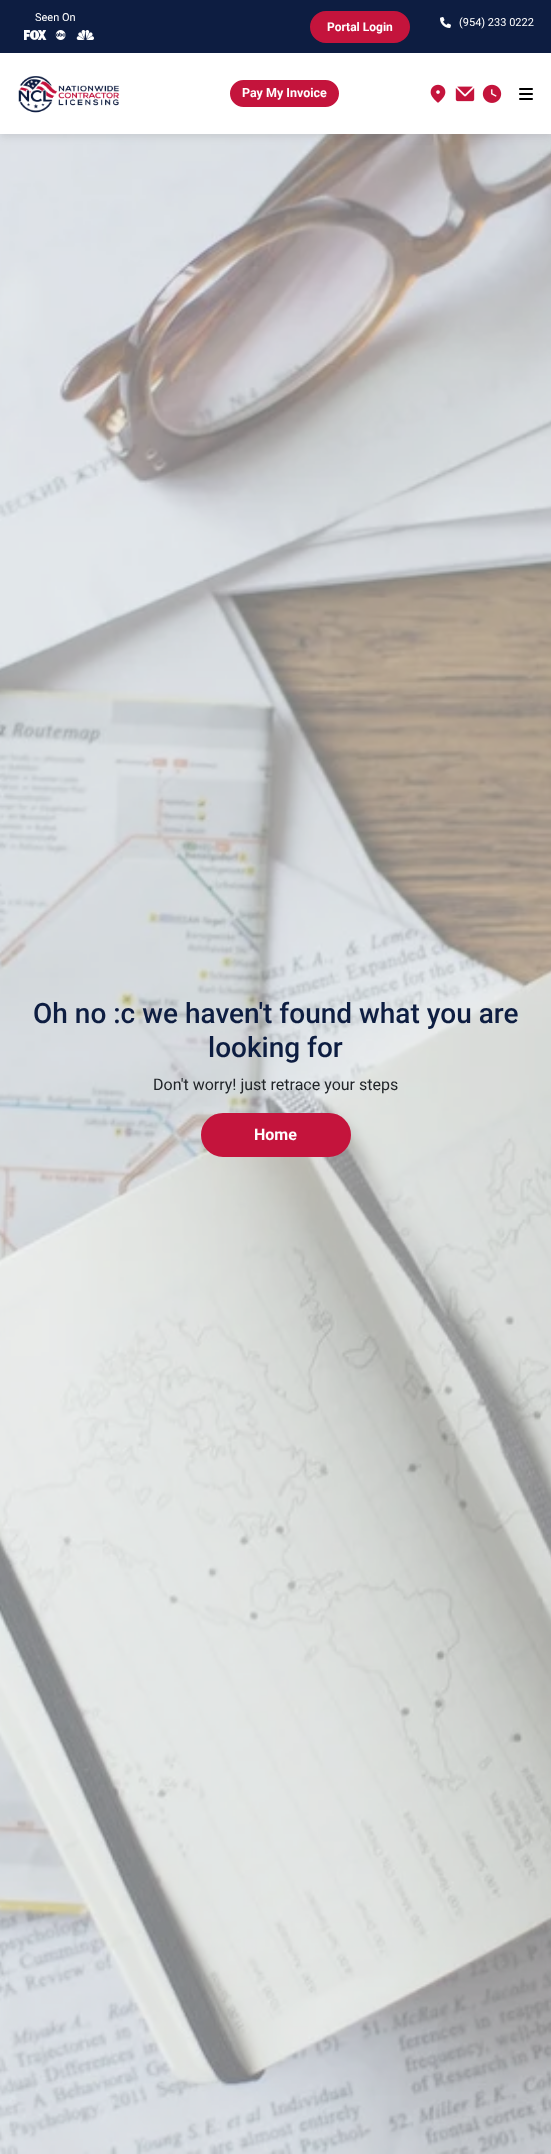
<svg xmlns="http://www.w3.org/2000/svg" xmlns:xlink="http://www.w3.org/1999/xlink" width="551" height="2154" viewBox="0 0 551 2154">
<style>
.cls-1{font:11px Roboto;fill:#ffffff}
.cls-2{font:bold 12px Roboto;fill:#ffffff}
.cls-3{font:bold 12.5px Roboto;fill:#ffffff}
.cls-4{font:500 28px Roboto;fill:#0d1d41}
.cls-5{font:16px Roboto;fill:#212529}
.cls-6{font:bold 16px Roboto;fill:#ffffff}
</style>
<rect width="100%" height="100%" fill="#ffffff"/>
<image xlink:href="image7.png" x="0" y="134" width="551" height="2020"/>
<rect fill="#636363" fill-opacity="0.2" filter="blur(4px)" x="0" y="2" width="551" height="134"/>
<rect fill="#ffffff" x="0" y="53" width="551" height="81"/>
<rect fill="#0d1d41" x="0" y="0" width="551" height="53"/>
<image xlink:href="image0.png" x="24" y="30" width="70" height="10"/>
<rect fill="#c4143c" stroke="#c4143c" stroke-width="2" x="311" y="12" width="98" height="30" rx="15"/>
<image xlink:href="image1.png" x="440" y="17" width="11" height="11"/>
<image xlink:href="image2.png" x="18" y="76" width="102" height="37"/>
<rect fill="#c4143c" stroke="#c4143c" stroke-width="2" x="231" y="81" width="107" height="25" rx="12.5"/>
<image xlink:href="image3.png" x="430" y="84" width="16" height="19"/>
<image xlink:href="image4.png" x="455" y="86" width="20" height="16"/>
<image xlink:href="image5.png" x="482" y="84" width="20" height="19"/>
<image xlink:href="image6.png" x="519" y="88" width="14" height="12"/>
<rect fill="#c4143c" stroke="#c4143c" stroke-width="2" x="202" y="1114" width="148" height="42" rx="21"/>
<text class="cls-1" x="35" y="21">Seen On</text>
<text class="cls-2" x="327" y="31">Portal Login</text>
<text class="cls-1" x="459" y="26">(954) 233 0222</text>
<text class="cls-3" x="242" y="97">Pay My Invoice</text>
<text class="cls-4" x="33" y="1023">Oh no :c we haven't found what you are</text>
<text class="cls-4" x="208" y="1057">looking for</text>
<text class="cls-5" x="153" y="1090">Don't worry! just retrace your steps</text>
<text class="cls-6" x="254" y="1140">Home</text>
</svg>
